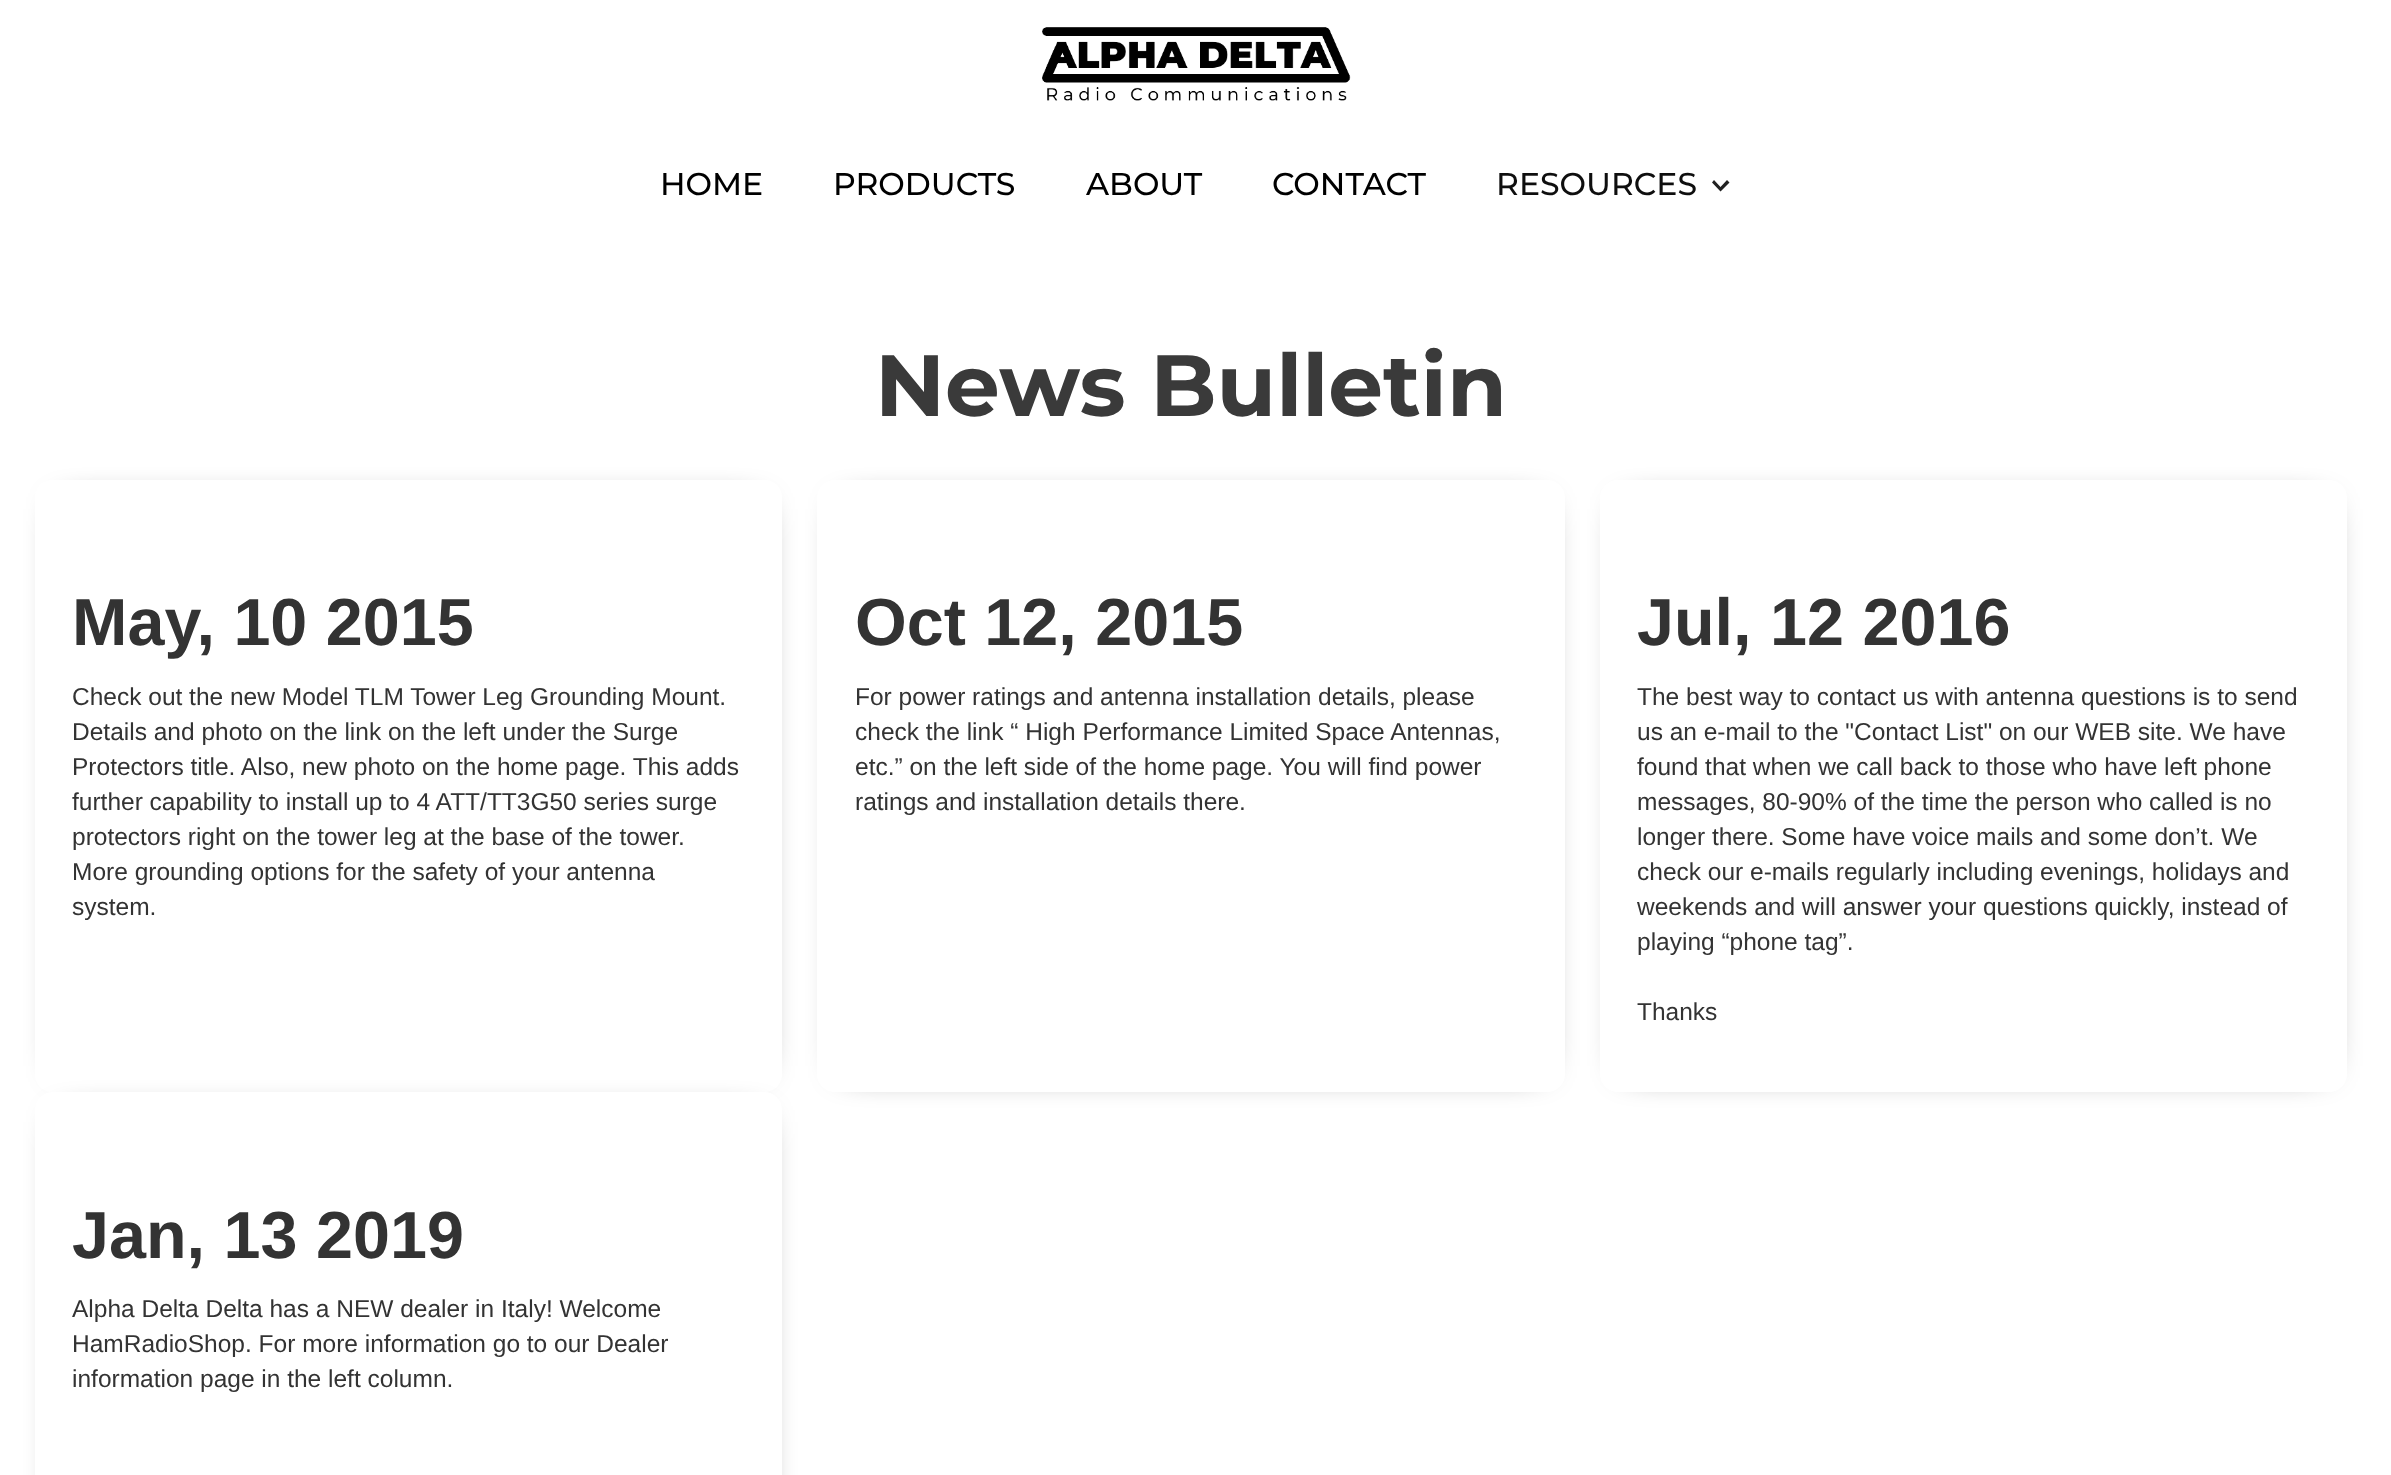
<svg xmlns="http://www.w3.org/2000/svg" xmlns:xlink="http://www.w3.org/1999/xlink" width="2391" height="1475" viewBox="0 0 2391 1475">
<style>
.cls-1{font:500 31.5px Montserrat;fill:#000000}
.cls-2{font:500 31.5px Montserrat;fill:#0e0e0e}
.cls-3{font:bold 86.75px Montserrat;fill:#3a3a3a}
.cls-4{font:bold 66.5px Liberation Sans;fill:#333333}
.cls-5{font:24.5px Liberation Sans;fill:#333333}
</style>
<defs>
<clipPath id="clip1"><path d="M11 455H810V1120H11ZM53 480H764C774 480 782 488 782 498V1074C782 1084 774 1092 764 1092H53C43 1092 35 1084 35 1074V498C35 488 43 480 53 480Z" clip-rule="evenodd"/></clipPath>
</defs>
<rect width="100%" height="100%" fill="#ffffff"/>
<image xlink:href="image0.png" x="1042" y="27" width="309" height="74"/>
<path fill="#222222" d="M1727 180L1720.5 187L1714 180L1712 182.5L1720.5 191.5L1729.5 182.5Z"/>
<g clip-path="url(#clip1)">
<rect fill="#000000" filter="blur(17.5px)" x="65" y="509" width="691" height="557"/>
</g>
<rect fill="#000000" filter="blur(17.5px)" x="847" y="509" width="691" height="557"/>
<rect fill="#ffffff" x="817" y="480" width="748" height="612" rx="18"/>
<rect fill="#000000" filter="blur(17.5px)" x="1629" y="509" width="692" height="557"/>
<rect fill="#ffffff" x="1600" y="480" width="747" height="612" rx="18"/>
<rect fill="#000000" filter="blur(17.5px)" x="65" y="1122" width="691" height="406"/>
<rect fill="#ffffff" x="35" y="1092" width="747" height="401" rx="18"/>
<text class="cls-1" x="660" y="195">HOME</text>
<text class="cls-1" x="833" y="195">PRODUCTS</text>
<text class="cls-1" x="1086" y="195">ABOUT</text>
<text class="cls-1" x="1272" y="195">CONTACT</text>
<text class="cls-2" x="1496" y="195">RESOURCES</text>
<text class="cls-3" x="875" y="416">News Bulletin</text>
<text class="cls-4" x="72" y="645">May, 10 2015</text>
<text class="cls-5"><tspan x="72" y="705">Check out the new Model TLM Tower Leg Grounding Mount.</tspan><tspan x="72" y="740">Details and photo on the link on the left under the Surge</tspan><tspan x="72" y="775">Protectors title. Also, new photo on the home page. This adds</tspan><tspan x="72" y="810">further capability to install up to 4 ATT/TT3G50 series surge</tspan><tspan x="72" y="845">protectors right on the tower leg at the base of the tower.</tspan><tspan x="72" y="880">More grounding options for the safety of your antenna</tspan><tspan x="72" y="915">system.</tspan></text>
<text class="cls-4" x="855" y="645">Oct 12, 2015</text>
<text class="cls-5"><tspan x="855" y="705">For power ratings and antenna installation details, please</tspan><tspan x="855" y="740">check the link “ High Performance Limited Space Antennas,</tspan><tspan x="855" y="775">etc.” on the left side of the home page. You will find power</tspan><tspan x="855" y="810">ratings and installation details there.</tspan></text>
<text class="cls-4" x="1637" y="645">Jul, 12 2016</text>
<text class="cls-5"><tspan x="1637" y="705">The best way to contact us with antenna questions is to send</tspan><tspan x="1637" y="740">us an e-mail to the "Contact List" on our WEB site. We have</tspan><tspan x="1637" y="775">found that when we call back to those who have left phone</tspan><tspan x="1637" y="810">messages, 80-90% of the time the person who called is no</tspan><tspan x="1637" y="845">longer there. Some have voice mails and some don’t. We</tspan><tspan x="1637" y="880">check our e-mails regularly including evenings, holidays and</tspan><tspan x="1637" y="915">weekends and will answer your questions quickly, instead of</tspan><tspan x="1637" y="950">playing “phone tag”.</tspan></text>
<text class="cls-5" x="1637" y="1020">Thanks</text>
<text class="cls-4" x="72" y="1258">Jan, 13 2019</text>
<text class="cls-5"><tspan x="72" y="1317">Alpha Delta Delta has a NEW dealer in Italy! Welcome</tspan><tspan x="72" y="1352">HamRadioShop. For more information go to our Dealer</tspan><tspan x="72" y="1387">information page in the left column.</tspan></text>
</svg>
